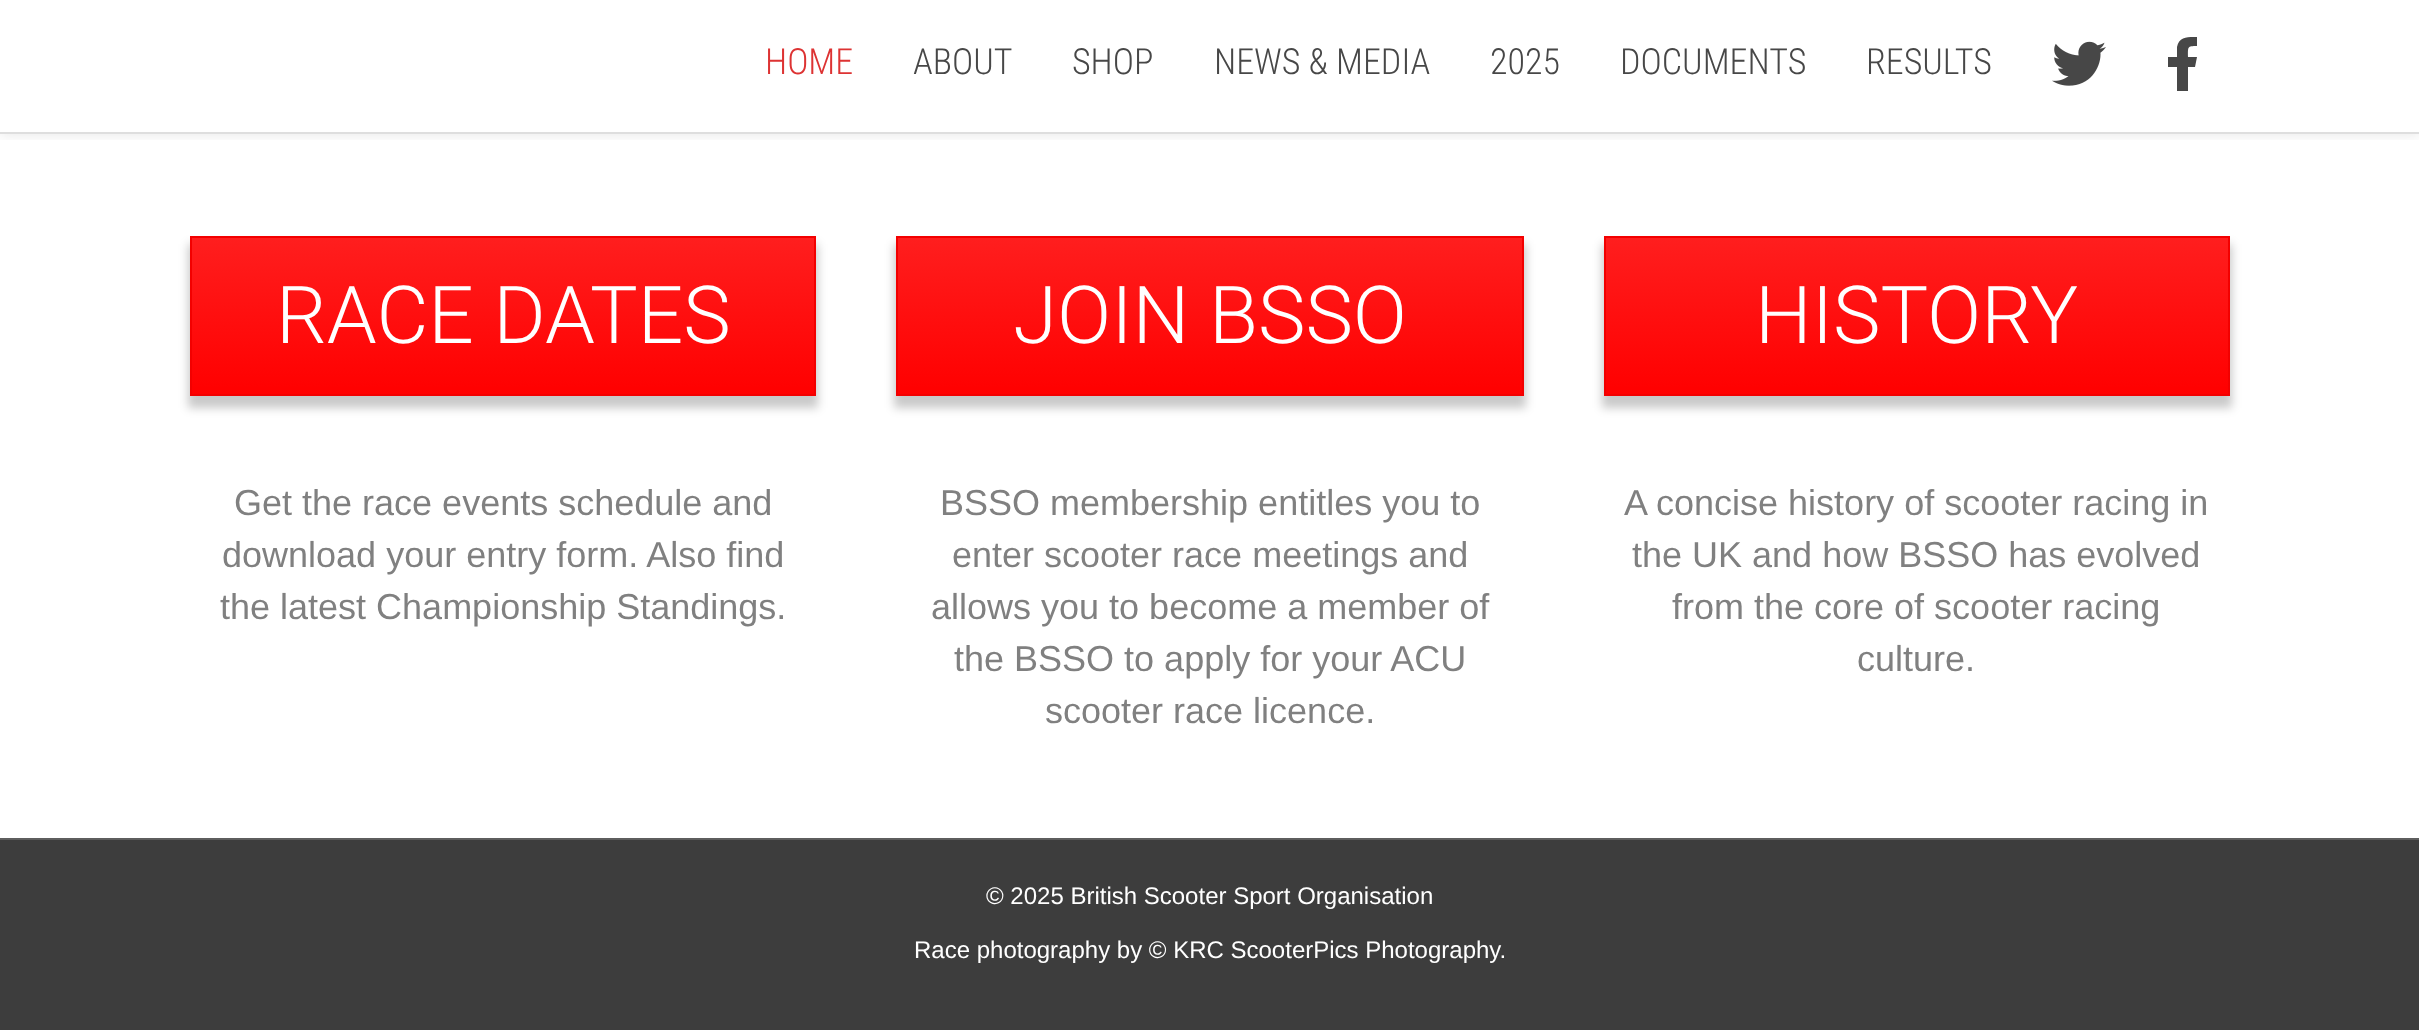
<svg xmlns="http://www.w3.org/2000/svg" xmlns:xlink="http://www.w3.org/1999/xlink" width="2419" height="1030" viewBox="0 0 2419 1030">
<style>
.cls-1{font:300 36px Roboto Condensed;fill:#dd3333}
.cls-2{font:300 36px Roboto Condensed;fill:#474747}
.cls-3{font:300 80px Roboto;fill:#ffffff}
.cls-4{font:36px Liberation Sans;fill:#808080}
.cls-5{font:24px Liberation Sans;fill:#ffffff}
</style>
<defs>
<clipPath id="clip1"><rect x="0" y="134" width="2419" height="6"/></clipPath>
<linearGradient id="g1" gradientUnits="userSpaceOnUse" x1="503" y1="238" x2="503" y2="394"><stop offset="0" stop-color="#ff1e1e"/><stop offset="1" stop-color="#ff0000"/></linearGradient>
<linearGradient id="g2" gradientUnits="userSpaceOnUse" x1="1210" y1="238" x2="1210" y2="394"><stop offset="0" stop-color="#ff1e1e"/><stop offset="1" stop-color="#ff0000"/></linearGradient>
<linearGradient id="g3" gradientUnits="userSpaceOnUse" x1="1917" y1="238" x2="1917" y2="394"><stop offset="0" stop-color="#ff1e1e"/><stop offset="1" stop-color="#ff0000"/></linearGradient>
</defs>
<rect width="100%" height="100%" fill="#ffffff"/>
<g clip-path="url(#clip1)">
<rect fill="#000000" fill-opacity="0.1" filter="blur(7px)" x="0" y="0" width="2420" height="134"/>
</g>
<rect fill="#dedede" x="0" y="132" width="2419" height="2"/>
<image xlink:href="image0.png" x="2052" y="41" width="54" height="45"/>
<path fill="#474747" d="M2195 67H2188V91H2177V67H2168V57H2177V47C2179 36 2189 37 2197 37V46C2187 46 2188 47 2188 57H2197Z"/>
<rect fill="#000000" fill-opacity="0.21" filter="blur(5px)" x="188" y="244" width="630" height="164"/>
<rect fill="url(#g1)" x="192" y="238" width="622" height="156"/>
<rect fill="none" stroke="#f30000" stroke-width="2" x="191" y="237" width="624" height="158"/>
<rect fill="#000000" fill-opacity="0.21" filter="blur(5px)" x="894" y="244" width="632" height="164"/>
<rect fill="url(#g2)" x="898" y="238" width="624" height="156"/>
<rect fill="none" stroke="#f30000" stroke-width="2" x="897" y="237" width="626" height="158"/>
<rect fill="#000000" fill-opacity="0.21" filter="blur(5px)" x="1602" y="244" width="630" height="164"/>
<rect fill="url(#g3)" x="1606" y="238" width="622" height="156"/>
<rect fill="none" stroke="#f30000" stroke-width="2" x="1605" y="237" width="624" height="158"/>
<rect fill="#3d3d3d" x="0" y="840" width="2419" height="190"/>
<rect fill="#5e5e5e" x="0" y="838" width="2419" height="2"/>
<text class="cls-1" x="765" y="74">HOME</text>
<text class="cls-2" x="913" y="74">ABOUT</text>
<text class="cls-2" x="1072" y="74">SHOP</text>
<text class="cls-2" x="1214" y="74">NEWS &amp; MEDIA</text>
<text class="cls-2" x="1490" y="74">2025</text>
<text class="cls-2" x="1620" y="74">DOCUMENTS</text>
<text class="cls-2" x="1866" y="74">RESULTS</text>
<text class="cls-3" x="276" y="343">RACE DATES</text>
<text class="cls-4" x="234" y="515">Get the race events schedule and</text>
<text class="cls-4" x="222" y="567">download your entry form. Also find</text>
<text class="cls-4" x="220" y="619">the latest Championship Standings.</text>
<text class="cls-3" x="1013" y="343">JOIN BSSO</text>
<text class="cls-4" x="940" y="515">BSSO membership entitles you to</text>
<text class="cls-4" x="952" y="567">enter scooter race meetings and</text>
<text class="cls-4" x="931" y="619">allows you to become a member of</text>
<text class="cls-4" x="954" y="671">the BSSO to apply for your ACU</text>
<text class="cls-4" x="1045" y="723">scooter race licence.</text>
<text class="cls-3" x="1755" y="343">HISTORY</text>
<text class="cls-4" x="1624" y="515">A concise history of scooter racing in</text>
<text class="cls-4" x="1632" y="567">the UK and how BSSO has evolved</text>
<text class="cls-4" x="1672" y="619">from the core of scooter racing</text>
<text class="cls-4" x="1857" y="671">culture.</text>
<text class="cls-5" x="986" y="904">© 2025 British Scooter Sport Organisation</text>
<text class="cls-5" x="914" y="958">Race photography by © KRC ScooterPics Photography.</text>
</svg>
